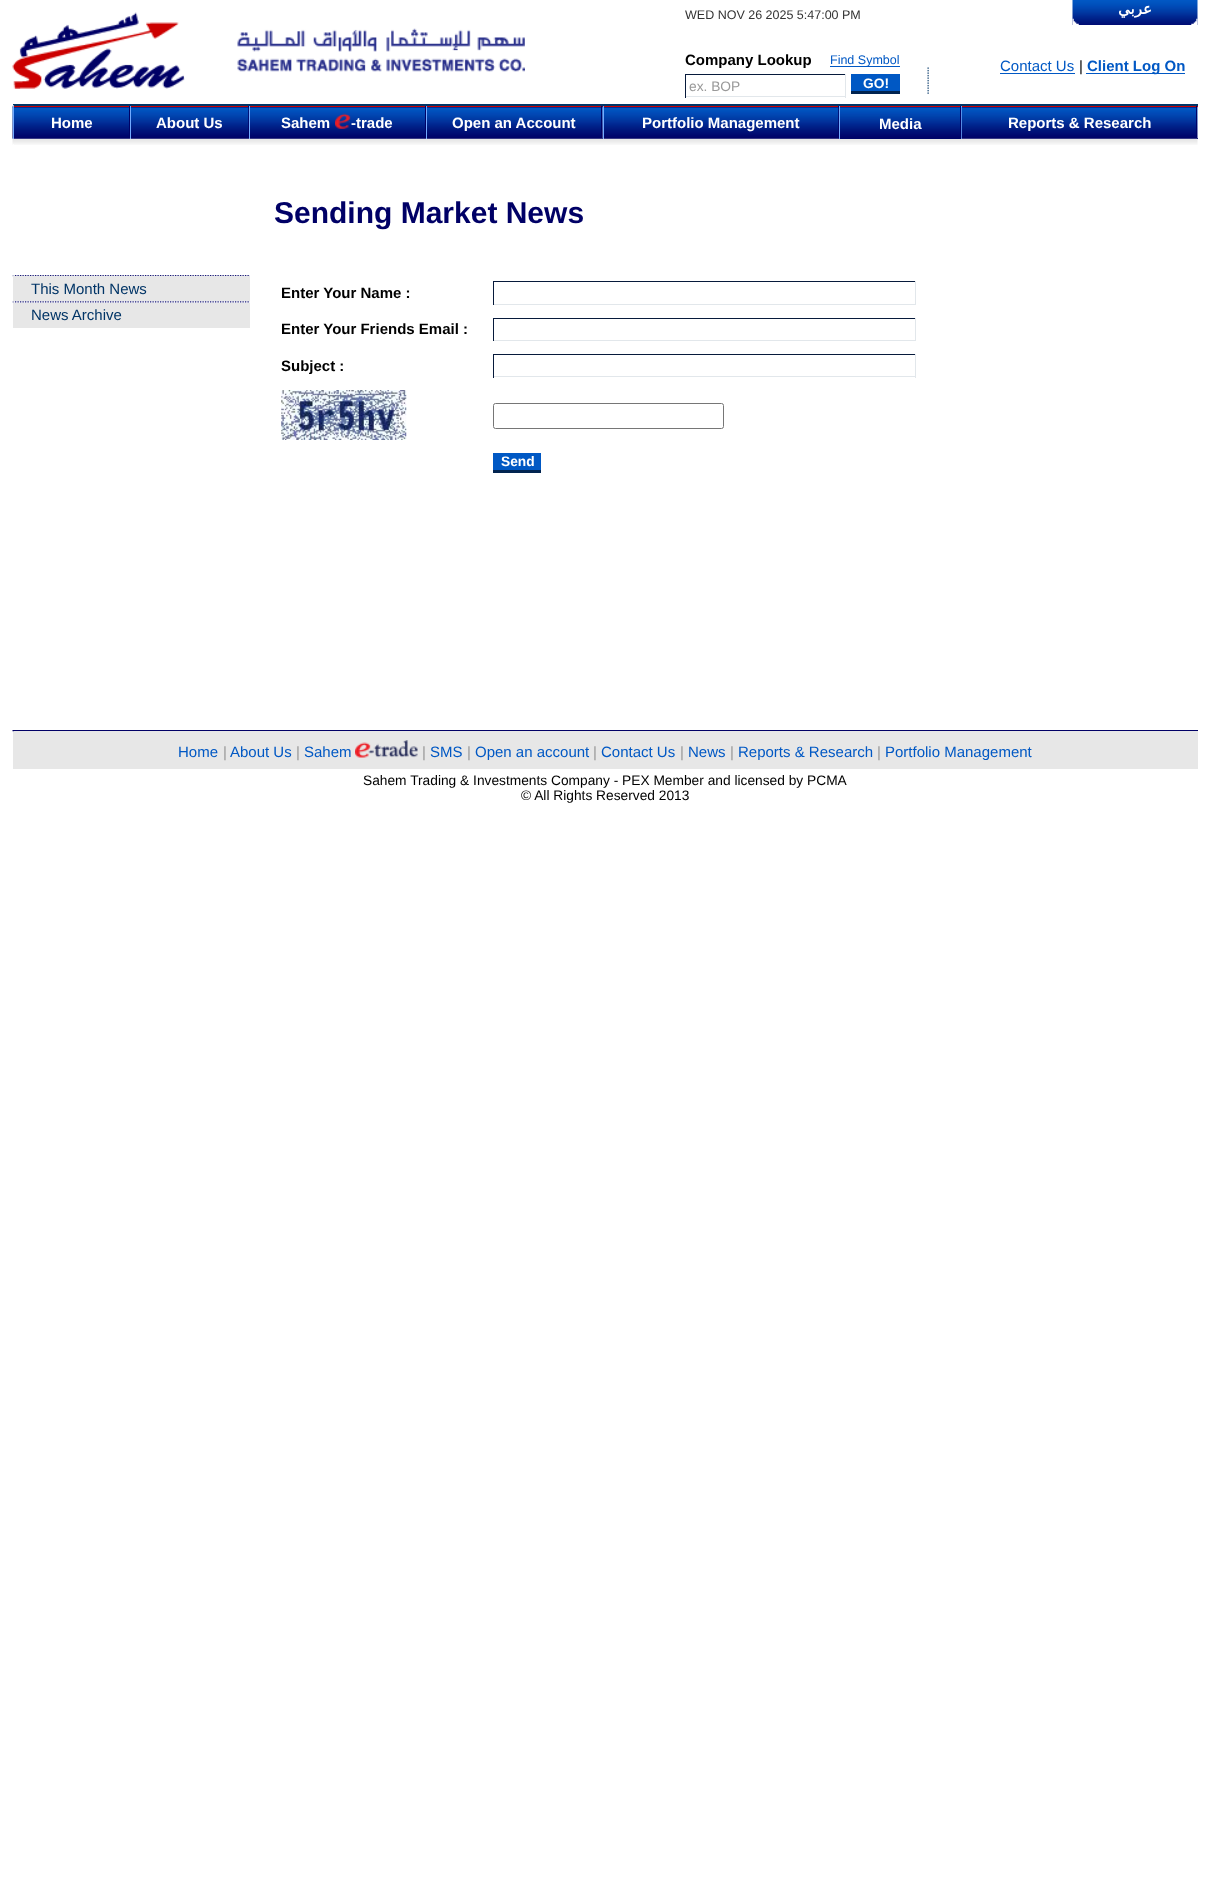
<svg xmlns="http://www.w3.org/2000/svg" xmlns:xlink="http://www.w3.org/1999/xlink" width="1210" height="1891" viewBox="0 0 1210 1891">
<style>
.cls-1{font:12.5px Liberation Sans;fill:#333333}
.cls-2{font:bold 15px Liberation Sans;fill:#000000}
.cls-3{font:12.5px Liberation Sans;fill:#0158c4}
.cls-4{font:13.75px Liberation Sans;fill:#999999}
.cls-5{font:bold 13.75px Liberation Sans;fill:#ffffff}
.cls-6{font:bold 15px DejaVu Sans;direction:rtl;fill:#ffffff}
.cls-7{font:15px Liberation Sans;fill:#0158c4}
.cls-8{font:15px Liberation Sans;fill:#000000}
.cls-9{font:bold 15px Liberation Sans;fill:#0158c4}
.cls-10{font:bold 15px Liberation Sans;fill:#ffffff}
.cls-11{font:bold 30px Liberation Sans;fill:#000066}
.cls-12{font:15px Liberation Sans;fill:#003466}
.cls-13{font:15px Liberation Sans;fill:#999999}
.cls-14{font:13.75px Liberation Sans;fill:#000000}
</style>
<rect width="100%" height="100%" fill="#ffffff"/>
<image xlink:href="image0.png" x="12" y="12" width="173" height="77"/>
<image xlink:href="image1.png" x="237" y="28" width="288" height="44"/>
<rect fill="#0158c4" x="830" y="66" width="70" height="1"/>
<rect fill="#071a3b" x="685" y="74" width="161" height="1"/>
<rect fill="#e2e7eb" x="845" y="74" width="1" height="24"/>
<rect fill="#e2e7eb" x="685" y="96" width="161" height="1"/>
<rect fill="#071a3b" x="685" y="74" width="1" height="24"/>
<rect fill="#0058c4" x="851" y="74" width="49" height="17"/>
<rect fill="#012450" x="851" y="91" width="49" height="3"/>
<image xlink:href="image2.png" x="1072" y="0" width="126" height="25"/>
<image xlink:href="image3.png" x="1072" y="18" width="7" height="7"/>
<image xlink:href="image4.png" x="1191" y="18" width="7" height="7"/>
<rect fill="#0158c4" x="1000" y="73" width="75" height="1"/>
<rect fill="#0158c4" x="1086" y="73" width="99" height="1"/>
<image xlink:href="image5.png" x="927" y="67" width="2" height="27"/>
<rect fill="#003466" x="13" y="104" width="1185" height="2"/>
<image xlink:href="image7.png" x="12" y="106" width="117" height="33"/>
<rect fill="#c90000" x="13" y="106" width="236" height="1"/>
<rect fill="#000166" x="129" y="106" width="1" height="33"/>
<rect fill="#000166" x="13" y="138" width="117" height="1"/>
<rect fill="#72aaff" x="13" y="106" width="1" height="33"/>
<image xlink:href="image6.png" x="12" y="105" width="2" height="2"/>
<image xlink:href="image8.png" x="131" y="107" width="117" height="31"/>
<rect fill="#000166" x="248" y="106" width="1" height="33"/>
<rect fill="#000166" x="130" y="138" width="119" height="1"/>
<rect fill="#72aaff" x="130" y="106" width="1" height="33"/>
<image xlink:href="image9.png" x="248" y="106" width="177" height="33"/>
<rect fill="#c90000" x="249" y="106" width="354" height="1"/>
<rect fill="#000166" x="425" y="106" width="1" height="33"/>
<rect fill="#000166" x="249" y="138" width="177" height="1"/>
<rect fill="#72aaff" x="249" y="106" width="1" height="33"/>
<image xlink:href="image10.png" x="335" y="113" width="16" height="16"/>
<image xlink:href="image11.png" x="427" y="107" width="176" height="31"/>
<rect fill="#000166" x="601" y="106" width="1" height="33"/>
<rect fill="#000166" x="426" y="138" width="177" height="1"/>
<rect fill="#72aaff" x="426" y="106" width="1" height="33"/>
<image xlink:href="image12.png" x="602" y="106" width="236" height="33"/>
<rect fill="#c90000" x="603" y="106" width="236" height="1"/>
<rect fill="#000166" x="838" y="106" width="1" height="33"/>
<rect fill="#000166" x="603" y="138" width="236" height="1"/>
<rect fill="#72aaff" x="603" y="106" width="1" height="33"/>
<image xlink:href="image14.png" x="962" y="107" width="236" height="31"/>
<rect fill="#c90000" x="961" y="106" width="237" height="1"/>
<rect fill="#000166" x="1196" y="106" width="1" height="33"/>
<rect fill="#000166" x="961" y="138" width="237" height="1"/>
<rect fill="#72aaff" x="961" y="106" width="1" height="33"/>
<image xlink:href="image15.png" x="12" y="138" width="1186" height="7"/>
<rect fill="#011077" x="840" y="107" width="120" height="32"/>
<image xlink:href="image13.png" x="838" y="107" width="124" height="32"/>
<rect fill="#cc0001" x="839" y="106" width="122" height="1"/>
<rect fill="#000166" x="960" y="106" width="1" height="33"/>
<rect fill="#72aaff" x="839" y="106" width="1" height="33"/>
<rect fill="#fdfdfd" x="13" y="144" width="1" height="1"/>
<image xlink:href="image16.png" x="12" y="275" width="238" height="2"/>
<image xlink:href="image17.png" x="12" y="275" width="2" height="1"/>
<rect fill="#e7e7e7" x="13" y="276" width="237" height="25"/>
<image xlink:href="image18.png" x="12" y="301" width="238" height="2"/>
<image xlink:href="image19.png" x="12" y="301" width="2" height="2"/>
<rect fill="#e7e7e7" x="13" y="303" width="237" height="25"/>
<rect fill="#071a3b" x="493" y="281" width="423" height="1"/>
<rect fill="#e2e7eb" x="915" y="281" width="1" height="24"/>
<rect fill="#e2e7eb" x="493" y="304" width="423" height="1"/>
<rect fill="#071a3b" x="493" y="281" width="1" height="24"/>
<rect fill="#071a3b" x="493" y="318" width="423" height="1"/>
<rect fill="#e2e7eb" x="915" y="318" width="1" height="23"/>
<rect fill="#e2e7eb" x="493" y="340" width="423" height="1"/>
<rect fill="#071a3b" x="493" y="318" width="1" height="23"/>
<rect fill="#071a3b" x="493" y="354" width="423" height="1"/>
<rect fill="#e2e7eb" x="915" y="354" width="1" height="24"/>
<rect fill="#e2e7eb" x="493" y="376" width="423" height="1"/>
<rect fill="#071a3b" x="493" y="354" width="1" height="24"/>
<image xlink:href="image20.png" x="281" y="390" width="126" height="50"/>
<rect fill="none" stroke="#767676" x="493.5" y="403.5" width="230" height="25" rx="2"/>
<rect fill="#0058c4" x="493" y="453" width="48" height="17"/>
<rect fill="#012450" x="493" y="470" width="48" height="3"/>
<rect fill="#010066" x="13" y="730" width="1185" height="1"/>
<rect fill="#e7e7e7" x="13" y="731" width="1185" height="38"/>
<image xlink:href="image21.png" x="12" y="730" width="2" height="2"/>
<image xlink:href="image22.png" x="355" y="740" width="63" height="18"/>
<text class="cls-1" x="685" y="19">WED NOV 26 2025 5:47:00 PM</text>
<text class="cls-2" x="685" y="65">Company Lookup</text>
<text class="cls-3" x="830" y="64">Find Symbol</text>
<text class="cls-4" x="689" y="91">ex. BOP</text>
<text class="cls-5" x="863" y="88">GO!</text>
<text class="cls-6" x="1152" y="14">عربي</text>
<text class="cls-7" x="1000" y="71">Contact Us</text>
<text class="cls-8" x="1079" y="71">|</text>
<text class="cls-9" x="1087" y="71">Client Log On</text>
<text class="cls-10" x="51" y="128">Home</text>
<text class="cls-10" x="156" y="128">About Us</text>
<text class="cls-10" x="281" y="128">Sahem</text>
<text class="cls-10" x="351" y="128">-trade</text>
<text class="cls-10" x="452" y="128">Open an Account</text>
<text class="cls-10" x="642" y="128">Portfolio Management</text>
<text class="cls-10" x="879" y="129">Media</text>
<text class="cls-10" x="1008" y="128">Reports &amp; Research</text>
<text class="cls-11" x="274" y="223">Sending Market News</text>
<text class="cls-12"><tspan x="31" y="294">This Month News</tspan><tspan x="31" y="320">News Archive</tspan></text>
<text class="cls-2" x="281" y="298">Enter Your Name :</text>
<text class="cls-2" x="281" y="334">Enter Your Friends Email :</text>
<text class="cls-2" x="281" y="371">Subject :</text>
<text class="cls-5" x="501" y="466">Send</text>
<text class="cls-7" x="178" y="757">Home</text>
<text class="cls-13" x="223" y="757">|</text>
<text class="cls-7" x="230" y="757">About Us</text>
<text class="cls-13" x="296" y="757">|</text>
<text class="cls-7" x="304" y="757">Sahem</text>
<text class="cls-13" x="422" y="757">|</text>
<text class="cls-7" x="430" y="757">SMS</text>
<text class="cls-13" x="467" y="757">|</text>
<text class="cls-7" x="475" y="757">Open an account</text>
<text class="cls-13" x="593" y="757">|</text>
<text class="cls-7" x="601" y="757">Contact Us</text>
<text class="cls-13" x="680" y="757">|</text>
<text class="cls-7" x="688" y="757">News</text>
<text class="cls-13" x="730" y="757">|</text>
<text class="cls-7" x="738" y="757">Reports &amp; Research</text>
<text class="cls-13" x="877" y="757">|</text>
<text class="cls-7" x="885" y="757">Portfolio Management</text>
<text class="cls-14" x="363" y="785">Sahem Trading &amp; Investments Company - PEX Member and licensed by PCMA</text>
<text class="cls-14" x="521" y="800">© All Rights Reserved 2013</text>
</svg>
